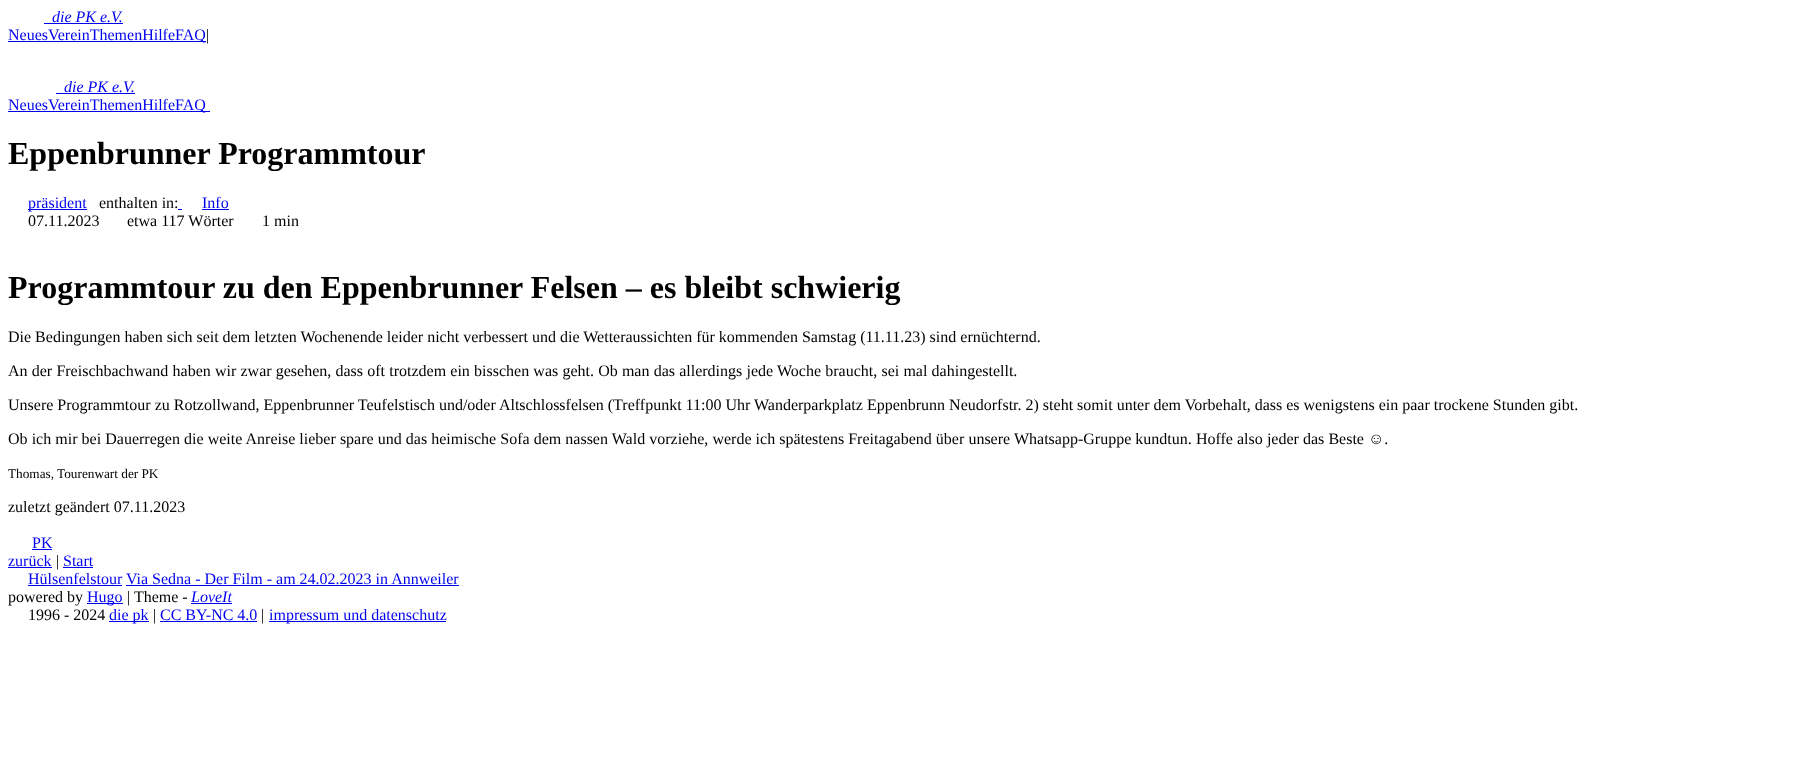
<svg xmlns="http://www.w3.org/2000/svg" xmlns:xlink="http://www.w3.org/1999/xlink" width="1815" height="778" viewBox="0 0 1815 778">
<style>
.cls-1{font:italic 16px Liberation Serif;fill:#0000ee}
.cls-2{font:16px Liberation Serif;fill:#0000ee}
.cls-3{font:16px Liberation Serif;fill:#000000}
.cls-4{font:bold 32px Liberation Serif;fill:#000000}
.cls-5{font:13.25px Liberation Serif;fill:#000000}
</style>
<rect width="100%" height="100%" fill="#ffffff"/>
<rect fill="#0000ee" x="44" y="23" width="79" height="1"/>
<rect fill="#0000ee" x="8" y="41" width="198" height="1"/>
<rect fill="#0000ee" x="56" y="93" width="79" height="1"/>
<rect fill="#0000ee" x="8" y="111" width="202" height="1"/>
<rect fill="#0000ee" x="28" y="209" width="59" height="1"/>
<rect fill="#0000ee" x="178" y="209" width="4" height="1"/>
<rect fill="#0000ee" x="202" y="209" width="27" height="1"/>
<rect fill="#0000ee" x="32" y="549" width="20" height="1"/>
<rect fill="#0000ee" x="8" y="567" width="44" height="1"/>
<rect fill="#0000ee" x="63" y="567" width="30" height="1"/>
<rect fill="#0000ee" x="28" y="585" width="94" height="1"/>
<rect fill="#0000ee" x="126" y="585" width="333" height="1"/>
<rect fill="#0000ee" x="87" y="603" width="36" height="1"/>
<rect fill="#0000ee" x="191" y="603" width="41" height="1"/>
<rect fill="#0000ee" x="109" y="621" width="40" height="1"/>
<rect fill="#0000ee" x="160" y="621" width="97" height="1"/>
<rect fill="#0000ee" x="269" y="621" width="177" height="1"/>
<text class="cls-1" x="52" y="22">die PK e.V.</text>
<text class="cls-2" x="8" y="40">NeuesVereinThemenHilfeFAQ</text>
<text class="cls-3" x="206" y="40">|</text>
<text class="cls-1" x="64" y="92">die PK e.V.</text>
<text class="cls-2" x="8" y="110">NeuesVereinThemenHilfeFAQ</text>
<text class="cls-4" x="8" y="164">Eppenbrunner Programmtour</text>
<text class="cls-2" x="28" y="208">präsident</text>
<text class="cls-3" x="99" y="208">enthalten in:</text>
<text class="cls-2" x="202" y="208">Info</text>
<text class="cls-3" x="28" y="226">07.11.2023</text>
<text class="cls-3" x="127" y="226">etwa 117 Wörter</text>
<text class="cls-3" x="262" y="226">1 min</text>
<text class="cls-4" x="8" y="298">Programmtour zu den Eppenbrunner Felsen – es bleibt schwierig</text>
<text class="cls-3" x="8" y="342">Die Bedingungen haben sich seit dem letzten Wochenende leider nicht verbessert und die Wetteraussichten für kommenden Samstag (11.11.23) sind ernüchternd.</text>
<text class="cls-3" x="8" y="376" word-spacing="0.2">An der Freischbachwand haben wir zwar gesehen, dass oft trotzdem ein bisschen was geht. Ob man das allerdings jede Woche braucht, sei mal dahingestellt.</text>
<text class="cls-3" x="8" y="410">Unsere Programmtour zu Rotzollwand, Eppenbrunner Teufelstisch und/oder Altschlossfelsen (Treffpunkt 11:00 Uhr Wanderparkplatz Eppenbrunn Neudorfstr. 2) steht somit unter dem Vorbehalt, dass es wenigstens ein paar trockene Stunden gibt.</text>
<text class="cls-3" x="8" y="444" word-spacing="0.1">Ob ich mir bei Dauerregen die weite Anreise lieber spare und das heimische Sofa dem nassen Wald vorziehe, werde ich spätestens Freitagabend über unsere Whatsapp-Gruppe kundtun. Hoffe also jeder das Beste ☺.</text>
<text class="cls-5" x="8" y="478">Thomas, Tourenwart der PK</text>
<text class="cls-3" x="8" y="512">zuletzt geändert 07.11.2023</text>
<text class="cls-2" x="32" y="548">PK</text>
<text class="cls-2" x="8" y="566">zurück</text>
<text class="cls-3" x="56" y="566">|</text>
<text class="cls-2" x="63" y="566">Start</text>
<text class="cls-2" x="28" y="584">Hülsenfelstour Via Sedna - Der Film - am 24.02.2023 in Annweiler</text>
<text class="cls-3" x="8" y="602">powered by</text>
<text class="cls-2" x="87" y="602">Hugo</text>
<text class="cls-3" x="127" y="602">| Theme -</text>
<text class="cls-1" x="191" y="602">LoveIt</text>
<text class="cls-3" x="28" y="620">1996 - 2024</text>
<text class="cls-2" x="109" y="620">die pk</text>
<text class="cls-3" x="153" y="620">|</text>
<text class="cls-2" x="160" y="620">CC BY-NC 4.0</text>
<text class="cls-3" x="261" y="620">|</text>
<text class="cls-2" x="269" y="620">impressum und datenschutz</text>
</svg>
